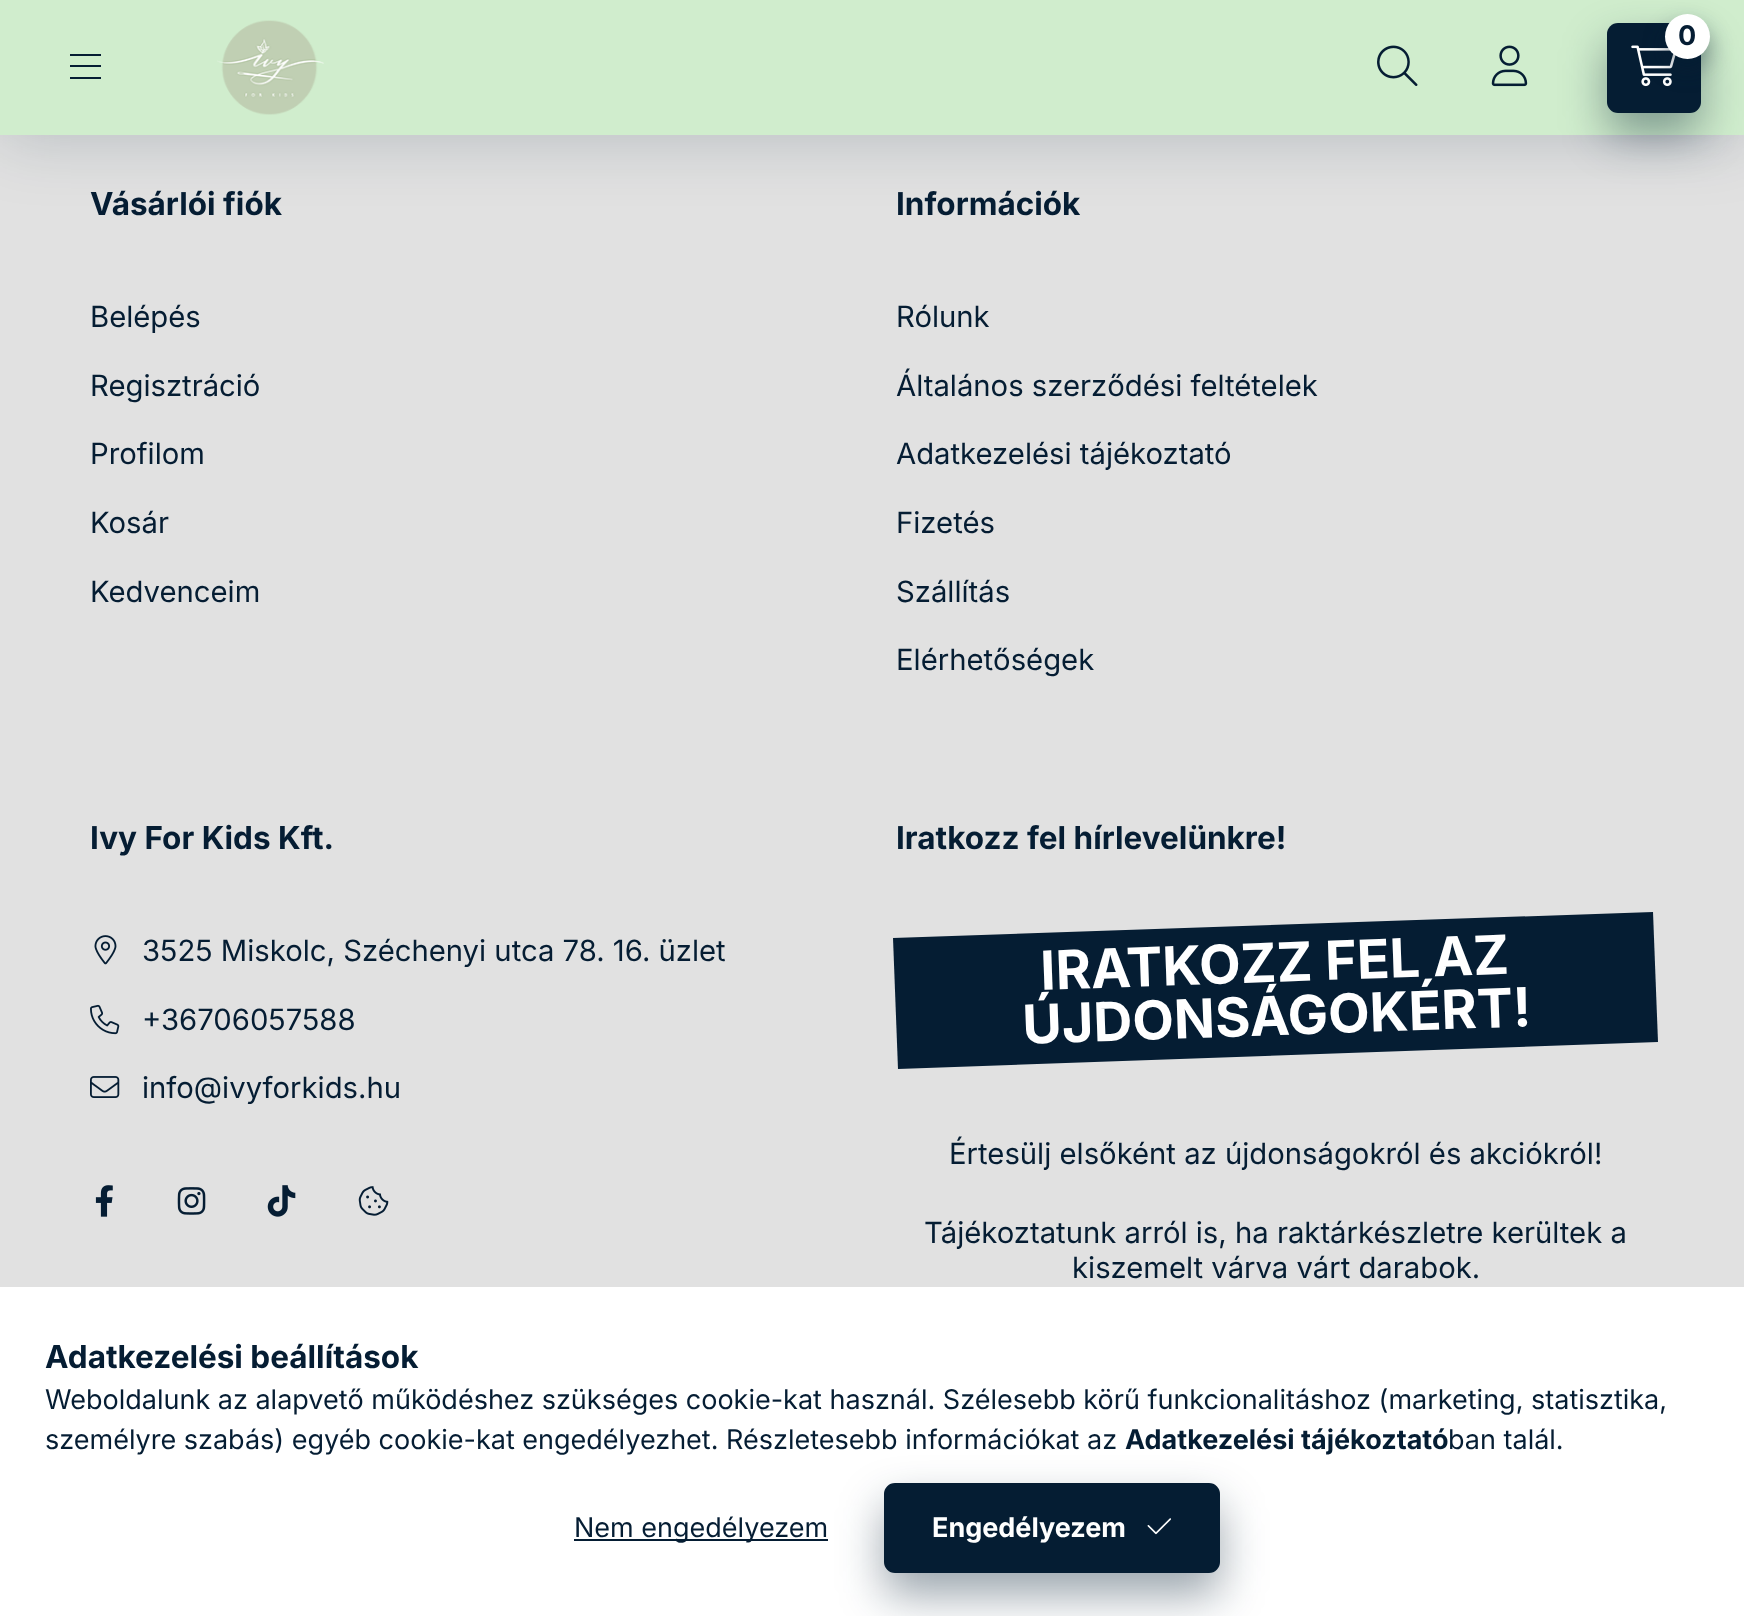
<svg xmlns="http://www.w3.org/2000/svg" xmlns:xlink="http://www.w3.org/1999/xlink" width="1744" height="1616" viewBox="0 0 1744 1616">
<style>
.cls-1{font:bold 27px Inter;fill:#051d33}
.cls-2{font:bold 31.5px Inter;fill:#051d33}
.cls-3{font:29.25px Inter;fill:#051d33}
.cls-4{font:bold 54px Inter;fill:#ffffff}
.cls-5{font:27px Inter;fill:#051d33}
.cls-6{font:bold 27px Inter;fill:#ffffff}
</style>
<rect width="100%" height="100%" fill="#e1e1e1"/>
<rect fill="#051d33" fill-opacity="0.2" filter="blur(34px)" x="0" y="0" width="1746" height="135"/>
<rect fill="#d0edcd" x="0" y="0" width="1744" height="135"/>
<rect fill="#051d33" x="70" y="54" width="31" height="2"/>
<rect fill="#051d33" x="70" y="65" width="31" height="2"/>
<rect fill="#051d33" x="70" y="77" width="31" height="2"/>
<image xlink:href="image0.png" x="217" y="20" width="107" height="95"/>
<rect fill="#051d33" fill-opacity="0.4" filter="blur(22.5px)" x="1607" y="45" width="94" height="90" rx="11"/>
<rect fill="#051d33" x="1607" y="23" width="94" height="90" rx="11"/>
<image xlink:href="image1.png" x="1631" y="45" width="45" height="42"/>
<rect fill="#051d33" fill-opacity="0.4" filter="blur(11px)" x="1665" y="25" width="45" height="45" rx="22.5"/>
<circle fill="#ffffff" cx="1687.5" cy="36.5" r="22.5"/>
<image xlink:href="image2.png" x="1377" y="45" width="41" height="41"/>
<image xlink:href="image3.png" x="1491" y="45" width="37" height="42"/>
<image xlink:href="image4.png" x="94" y="935" width="23" height="30"/>
<image xlink:href="image5.png" x="90" y="1004" width="30" height="31"/>
<image xlink:href="image6.png" x="90" y="1076" width="30" height="22"/>
<image xlink:href="image7.png" x="95" y="1185" width="18" height="32"/>
<image xlink:href="image8.png" x="177" y="1187" width="29" height="28"/>
<image xlink:href="image9.png" x="267" y="1185" width="29" height="32"/>
<image xlink:href="image10.png" x="358" y="1186" width="31" height="30"/>
<path fill="#051d33" d="M893 938L1653 912L1658 1042L898 1069Z"/>
<rect fill="#ffffff" x="0" y="1287" width="1744" height="329"/>
<rect fill="#051d33" x="574" y="1539" width="254" height="2"/>
<rect fill="#051d33" fill-opacity="0.4" filter="blur(22.5px)" x="884" y="1505" width="336" height="90" rx="11"/>
<rect fill="#051d33" stroke="#051d33" stroke-width="2" x="885" y="1484" width="334" height="88" rx="10"/>
<image xlink:href="image11.png" x="1147" y="1518" width="24" height="17"/>
<text class="cls-1" x="1678" y="45">0</text>
<text class="cls-2" x="90" y="215">Vásárlói fiók</text>
<text class="cls-3" x="90" y="327">Belépés</text>
<text class="cls-3" x="90" y="396">Regisztráció</text>
<text class="cls-3" x="90" y="464">Profilom</text>
<text class="cls-3" x="90" y="533">Kosár</text>
<text class="cls-3" x="90" y="602">Kedvenceim</text>
<text class="cls-2" x="896" y="215">Információk</text>
<text class="cls-3" x="896" y="327">Rólunk</text>
<text class="cls-3" x="896" y="396">Általános szerződési feltételek</text>
<text class="cls-3" x="896" y="464">Adatkezelési tájékoztató</text>
<text class="cls-3" x="896" y="533">Fizetés</text>
<text class="cls-3" x="896" y="602">Szállítás</text>
<text class="cls-3" x="896" y="670">Elérhetőségek</text>
<text class="cls-2" x="90" y="849">Ivy For Kids Kft.</text>
<text class="cls-3" x="142" y="961">3525 Miskolc, Széchenyi utca 78. 16. üzlet</text>
<text class="cls-3" x="142" y="1030">+36706057588</text>
<text class="cls-3" x="142" y="1098">info@ivyforkids.hu</text>
<text class="cls-2" x="896" y="849">Iratkozz fel hírlevelünkre!</text>
<text class="cls-4" x="1041" y="990" transform="rotate(-2 1041 990)">IRATKOZZ FEL AZ</text>
<text class="cls-4" x="1023" y="1044" transform="rotate(-2 1023 1044)">ÚJDONSÁGOKÉRT!</text>
<text class="cls-3" x="949" y="1164">Értesülj elsőként az újdonságokról és akciókról!</text>
<text class="cls-3" x="924" y="1243">Tájékoztatunk arról is, ha raktárkészletre kerültek a</text>
<text class="cls-3" x="1072" y="1278">kiszemelt várva várt darabok.</text>
<text class="cls-2" x="45" y="1368">Adatkezelési beállítások</text>
<text class="cls-5"><tspan x="45" y="1409">Weboldalunk az alapvető működéshez szükséges cookie-kat használ. Szélesebb körű funkcionalitáshoz (marketing, statisztika,</tspan><tspan x="45" y="1449">személyre szabás) egyéb cookie-kat engedélyezhet. Részletesebb információkat az</tspan></text>
<text class="cls-1" x="1125" y="1449">Adatkezelési tájékoztató</text>
<text class="cls-5" x="1448" y="1449">ban talál.</text>
<text class="cls-5" x="574" y="1537">Nem engedélyezem</text>
<text class="cls-6" x="932" y="1537">Engedélyezem</text>
</svg>
